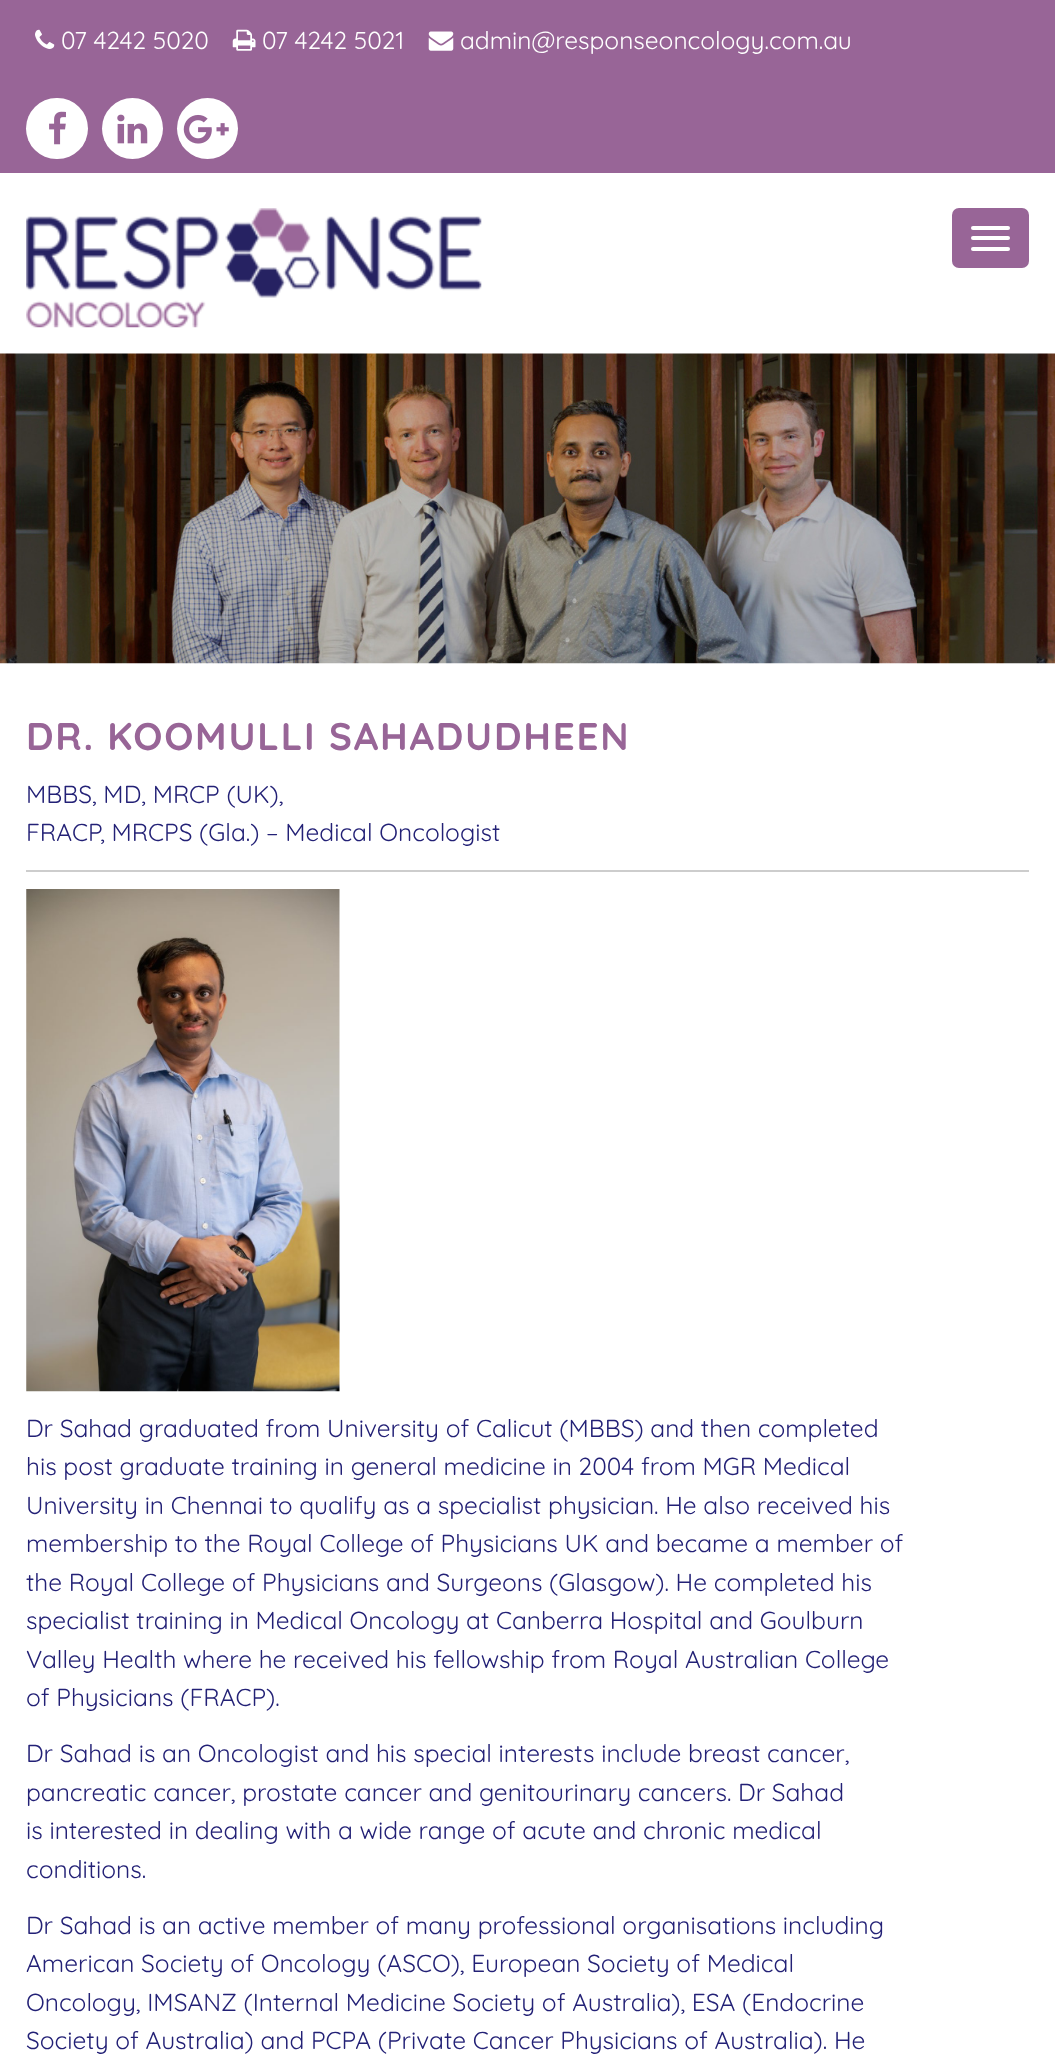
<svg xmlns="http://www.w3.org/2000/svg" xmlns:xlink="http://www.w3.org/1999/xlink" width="1055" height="2054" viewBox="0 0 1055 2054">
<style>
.cls-1{font:24.5px Quicksand;fill:#ffffff}
.cls-2{font:bold 38.5px Quicksand;letter-spacing:1.75px;fill:#986597}
.cls-3{font:24.5px Quicksand;fill:#232176}
</style>
<rect width="100%" height="100%" fill="#ffffff"/>
<rect fill="#986597" x="0" y="0" width="1055" height="173"/>
<image xlink:href="image0.png" x="35" y="29" width="20" height="20"/>
<image xlink:href="image1.png" x="232" y="29" width="24" height="22"/>
<image xlink:href="image2.png" x="428" y="31" width="26" height="20"/>
<rect fill="#ffffff" x="26" y="98" width="62" height="61" rx="30.5"/>
<image xlink:href="image3.png" x="49" y="111" width="17" height="34"/>
<circle fill="#ffffff" cx="132.5" cy="128.5" r="30.5"/>
<image xlink:href="image4.png" x="117" y="114" width="31" height="30"/>
<circle fill="#ffffff" cx="207.5" cy="128.5" r="30.5"/>
<image xlink:href="image5.png" x="183" y="114" width="46" height="30"/>
<image xlink:href="image6.png" x="26" y="208" width="456" height="120"/>
<rect fill="#986597" x="952" y="208" width="77" height="60" rx="7"/>
<rect fill="#ffffff" x="971" y="226" width="39" height="4" rx="2"/>
<rect fill="#ffffff" x="971" y="236" width="39" height="4" rx="2"/>
<rect fill="#ffffff" x="971" y="247" width="39" height="4" rx="2"/>
<image xlink:href="image7.png" x="0" y="353" width="1055" height="311"/>
<rect fill="#cdcdcd" x="26" y="870" width="1003" height="2"/>
<image xlink:href="image8.png" x="26" y="889" width="314" height="503"/>
<text class="cls-1" x="61" y="49">07 4242 5020</text>
<text class="cls-1" x="262" y="49">07 4242 5021</text>
<text class="cls-1" x="460" y="49">admin@responseoncology.com.au</text>
<text class="cls-2" x="26" y="750">DR. KOOMULLI SAHADUDHEEN</text>
<text class="cls-3"><tspan x="26" y="803">MBBS, MD, MRCP (UK),</tspan><tspan x="26" y="841">FRACP, MRCPS (Gla.) – Medical Oncologist</tspan></text>
<text class="cls-3"><tspan x="26" y="1437">Dr Sahad graduated from University of Calicut (MBBS) and then completed</tspan><tspan x="26" y="1475">his post graduate training in general medicine in 2004 from MGR Medical</tspan><tspan x="26" y="1514">University in Chennai to qualify as a specialist physician. He also received his</tspan><tspan x="26" y="1552">membership to the Royal College of Physicians UK and became a member of</tspan><tspan x="26" y="1591">the Royal College of Physicians and Surgeons (Glasgow). He completed his</tspan><tspan x="26" y="1629">specialist training in Medical Oncology at Canberra Hospital and Goulburn</tspan><tspan x="26" y="1668">Valley Health where he received his fellowship from Royal Australian College</tspan><tspan x="26" y="1706">of Physicians (FRACP).</tspan></text>
<text class="cls-3"><tspan x="26" y="1762">Dr Sahad is an Oncologist and his special interests include breast cancer,</tspan><tspan x="26" y="1801">pancreatic cancer, prostate cancer and genitourinary cancers. Dr Sahad</tspan><tspan x="26" y="1839">is interested in dealing with a wide range of acute and chronic medical</tspan><tspan x="26" y="1878">conditions.</tspan></text>
<text class="cls-3"><tspan x="26" y="1934">Dr Sahad is an active member of many professional organisations including</tspan><tspan x="26" y="1972">American Society of Oncology (ASCO), European Society of Medical</tspan><tspan x="26" y="2011">Oncology, IMSANZ (Internal Medicine Society of Australia), ESA (Endocrine</tspan><tspan x="26" y="2049">Society of Australia) and PCPA (Private Cancer Physicians of Australia). He</tspan></text>
</svg>
